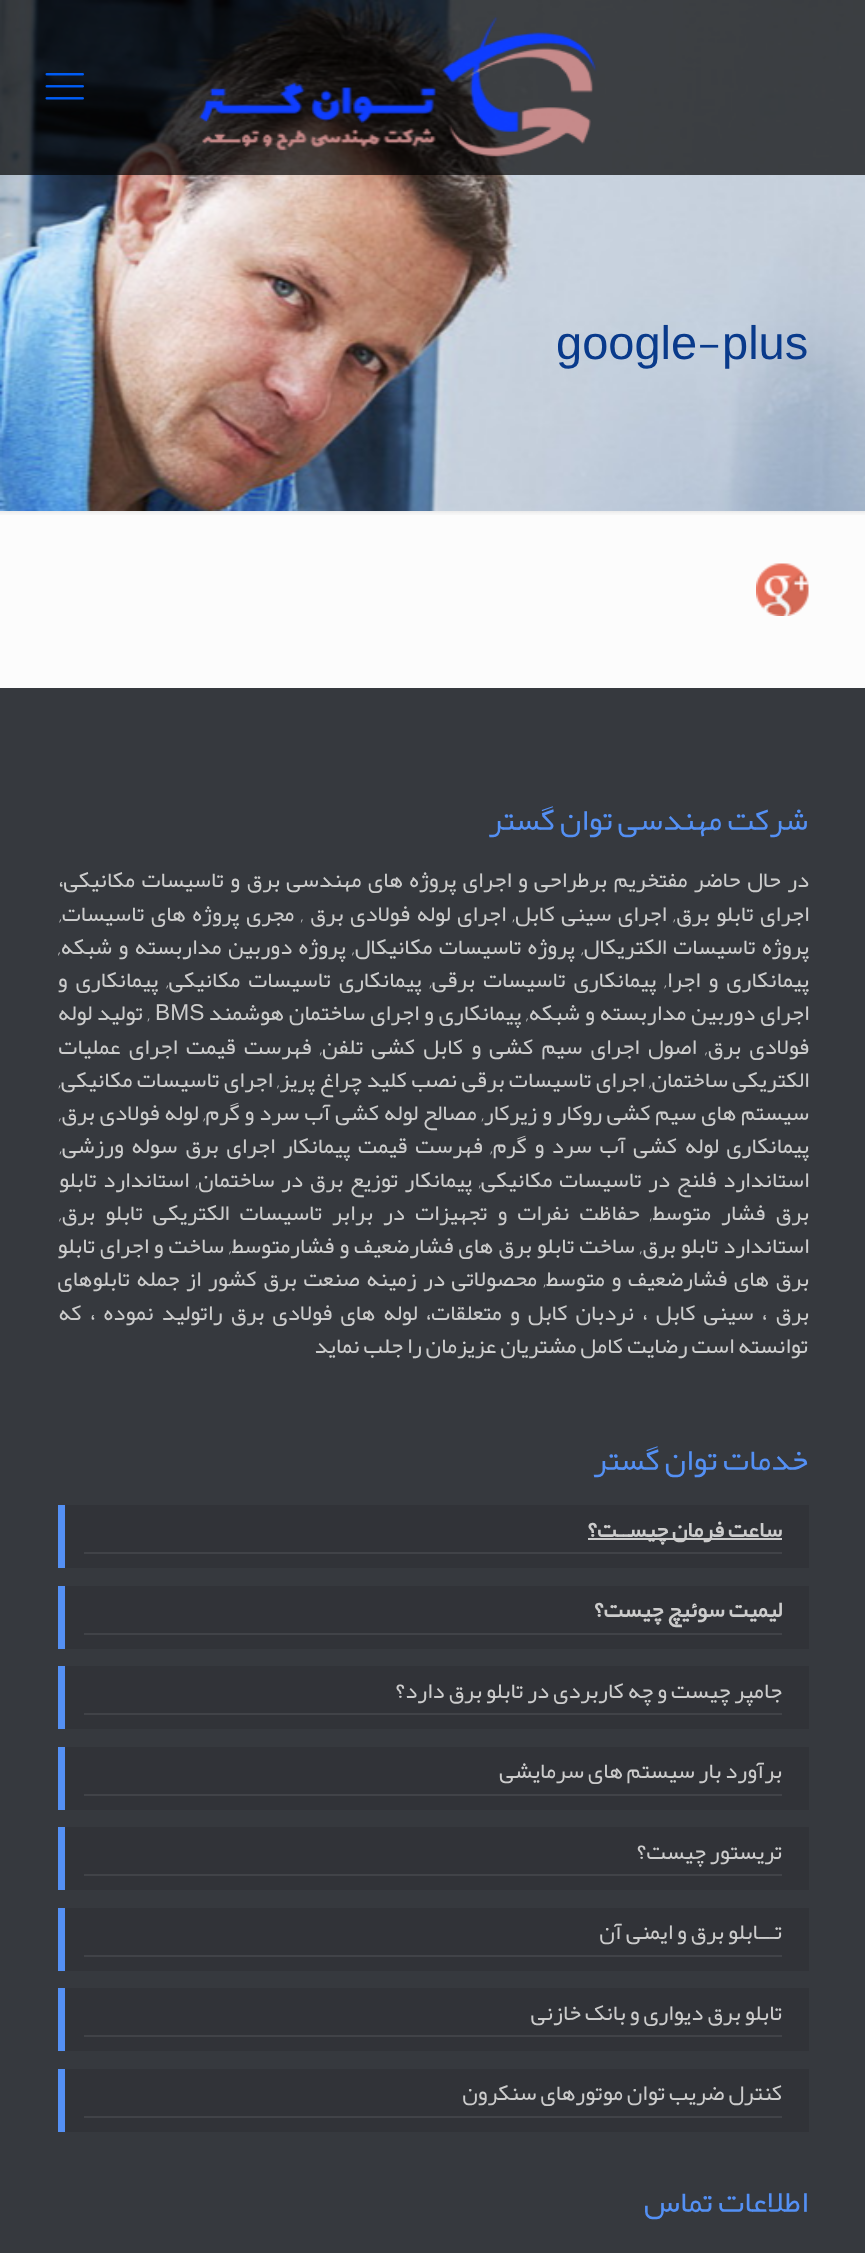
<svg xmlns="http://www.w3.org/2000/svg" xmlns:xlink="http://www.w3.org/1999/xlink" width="865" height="2253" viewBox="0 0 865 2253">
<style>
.cls-1{font:47px Liberation Sans;fill:#093a8b}
.cls-2{font:47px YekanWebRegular;fill:#093a8b}
.cls-3{font:31.5px YekanWebRegular;direction:rtl;fill:#5490f4}
.cls-4{font:22.75px YekanWebRegular;direction:rtl;fill:#cccccc}
.cls-5{font:22.75px Liberation Sans;fill:#cccccc}
.cls-6{font:bold 22.75px YekanWebRegular;direction:rtl;fill:#cccccc}
</style>
<rect width="100%" height="100%" fill="#fcfcfc"/>
<image xlink:href="image0.png" x="0" y="0" width="865" height="511"/>
<rect fill="#000000" fill-opacity="0.7" x="0" y="0" width="865" height="175"/>
<image xlink:href="image1.png" x="199" y="17" width="398" height="140"/>
<image xlink:href="image2.png" x="45" y="73" width="39" height="27"/>
<image xlink:href="image3.png" x="0" y="511" width="865" height="4"/>
<image xlink:href="image4.png" x="756" y="563" width="53" height="53"/>
<rect fill="#36393e" x="0" y="688" width="865" height="1565"/>
<rect fill="#313338" x="65" y="1505" width="744" height="63"/>
<rect fill="#414348" x="84" y="1552" width="698" height="2"/>
<rect fill="#cccccc" x="588" y="1538" width="194" height="2"/>
<rect fill="#5490f4" x="58" y="1505" width="7" height="63"/>
<rect fill="#313338" x="65" y="1586" width="744" height="63"/>
<rect fill="#414348" x="84" y="1633" width="698" height="2"/>
<rect fill="#5490f4" x="58" y="1586" width="7" height="63"/>
<rect fill="#313338" x="65" y="1666" width="744" height="63"/>
<rect fill="#414348" x="84" y="1713" width="698" height="2"/>
<rect fill="#5490f4" x="58" y="1666" width="7" height="63"/>
<rect fill="#313338" x="65" y="1747" width="744" height="63"/>
<rect fill="#414348" x="84" y="1794" width="698" height="2"/>
<rect fill="#5490f4" x="58" y="1747" width="7" height="63"/>
<rect fill="#313338" x="65" y="1827" width="744" height="63"/>
<rect fill="#414348" x="84" y="1874" width="698" height="2"/>
<rect fill="#5490f4" x="58" y="1827" width="7" height="63"/>
<rect fill="#313338" x="65" y="1908" width="744" height="63"/>
<rect fill="#414348" x="84" y="1955" width="698" height="2"/>
<rect fill="#5490f4" x="58" y="1908" width="7" height="63"/>
<rect fill="#313338" x="65" y="1988" width="744" height="63"/>
<rect fill="#414348" x="84" y="2035" width="698" height="2"/>
<rect fill="#5490f4" x="58" y="1988" width="7" height="63"/>
<rect fill="#313338" x="65" y="2069" width="744" height="63"/>
<rect fill="#414348" x="84" y="2116" width="698" height="2"/>
<rect fill="#5490f4" x="58" y="2069" width="7" height="63"/>
<text class="cls-1" x="722" y="359">plus</text>
<text class="cls-2" x="697" y="359">-</text>
<text class="cls-1" x="556" y="359">google</text>
<text class="cls-3" x="808" y="830">شرکت مهندسی توان گستر</text>
<text class="cls-4" x="809" y="887" word-spacing="2.5">در حال حاضر مفتخریم</text>
<text class="cls-4" x="607" y="887" word-spacing="2.5">برطراحی و اجرای پروژه های مهندسی برق و تاسیسات مکانیکی،</text>
<text class="cls-4"><tspan x="809" y="921" word-spacing="2.75">اجرای تابلو برق, اجرای سینی کابل, اجرای لوله فولادی برق , مجری پروژه های تاسیسات,</tspan><tspan x="809" y="954" word-spacing="2.6">پروژه تاسیسات الکتریکال, پروژه تاسیسات مکانیکال, پروژه دوربین مداربسته و شبکه,</tspan><tspan x="809" y="987" word-spacing="4.25">پیمانکاری و اجرا, پیمانکاری تاسیسات برقی, پیمانکاری تاسیسات مکانیکی, پیمانکاری و</tspan><tspan x="809" y="1020" word-spacing="1">اجرای دوربین مداربسته و شبکه, پیمانکاری و اجرای ساختمان هوشمند</tspan></text>
<text class="cls-5" x="155" y="1020">BMS</text>
<text class="cls-4" x="150" y="1020" word-spacing="1">, تولید لوله</text>
<text class="cls-4"><tspan x="809" y="1054" word-spacing="4.4">فولادی برق, اصول اجرای سیم کشی و کابل کشی تلفن, فهرست قیمت اجرای عملیات</tspan><tspan x="809" y="1087" word-spacing="0.6">الکتریکی ساختمان, اجرای تاسیسات برقی نصب کلید چراغ پریز, اجرای تاسیسات مکانیکی,</tspan><tspan x="809" y="1120" word-spacing="1">سیستم های سیم کشی روکار و زیرکار, مصالح لوله کشی آب سرد و گرم, لوله فولادی برق,</tspan><tspan x="809" y="1153" word-spacing="3.75">پیمانکاری لوله کشی آب سرد و گرم, فهرست قیمت پیمانکار اجرای برق سوله ورزشی,</tspan><tspan x="809" y="1187" word-spacing="2.75">استاندارد فلنج در تاسیسات مکانیکی, پیمانکار توزیع برق در ساختمان, استاندارد تابلو</tspan><tspan x="809" y="1220" word-spacing="6.25">برق فشار متوسط, حفاظت نفرات و تجهیزات در برابر تاسیسات الکتریکی تابلو برق,</tspan><tspan x="809" y="1253" word-spacing="1">استاندارد تابلو برق, ساخت تابلو برق های فشارضعیف و فشارمتوسط, ساخت و اجرای تابلو</tspan><tspan x="809" y="1286" word-spacing="2.75">برق های فشارضعیف و متوسط, محصولاتی در زمینه صنعت برق کشور از جمله تابلوهای</tspan><tspan x="809" y="1320" word-spacing="4.25">برق ، سینی کابل ، نردبان کابل و متعلقات، لوله های فولادی برق راتولید نموده ، که</tspan></text>
<text class="cls-4" x="808" y="1353">توانسته است رضایت کامل مشتریان عزیزمان را جلب نماید</text>
<text class="cls-3" x="808" y="1470">خدمات توان گستر</text>
<text class="cls-6" x="782" y="1537">ساعت فرمان چیســت؟</text>
<text class="cls-6" x="782" y="1617">لیمیت سوئیچ چیست؟</text>
<text class="cls-4" x="782" y="1698">جامپر چیست و چه کاربردی در تابلو برق دارد؟</text>
<text class="cls-4" x="782" y="1778">برآورد بار سیستم های سرمایشی</text>
<text class="cls-4" x="782" y="1859">تریستور چیست؟</text>
<text class="cls-4" x="782" y="1939">تـــابلو برق و ایمنی آن</text>
<text class="cls-4" x="782" y="2020">تابلو برق دیواری و بانک خازنی</text>
<text class="cls-4" x="782" y="2100">کنترل ضریب توان موتورهای سنکرون</text>
<text class="cls-3" x="808" y="2212">اطلاعات تماس</text>
</svg>
